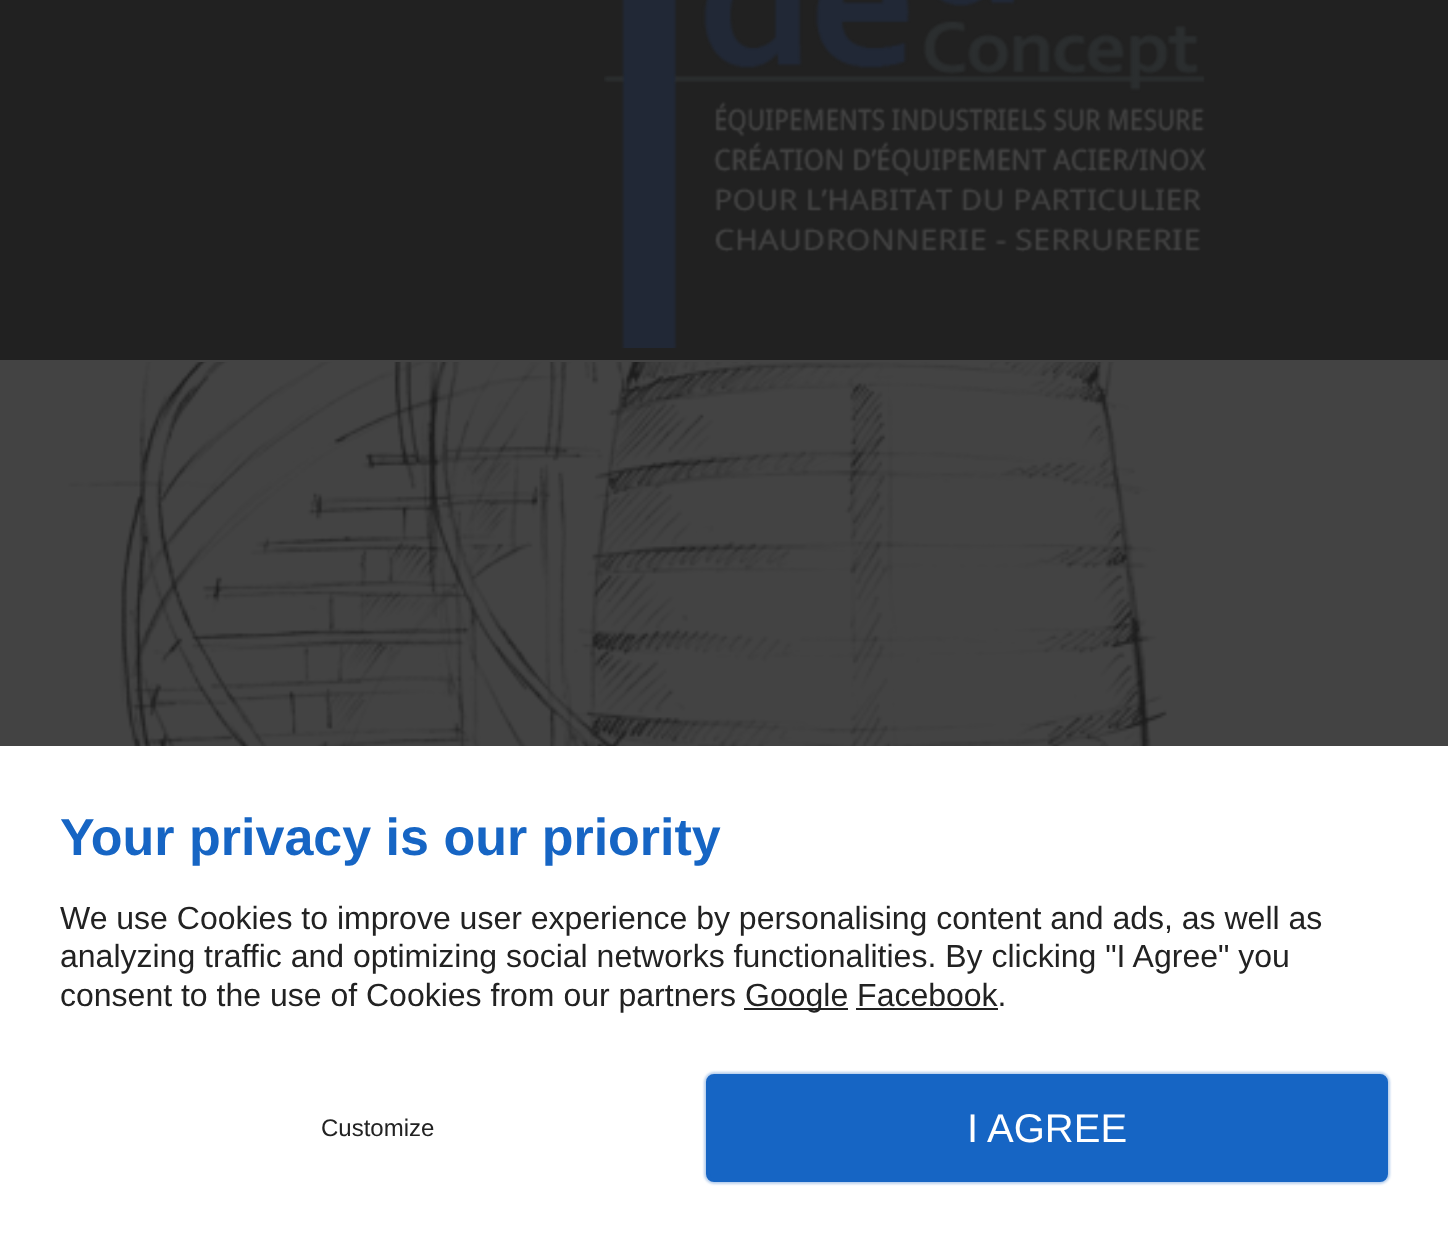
<svg xmlns="http://www.w3.org/2000/svg" xmlns:xlink="http://www.w3.org/1999/xlink" width="1448" height="1242" viewBox="0 0 1448 1242">
<style>
.cls-1{font:bold 52px Liberation Sans;fill:#1665c4}
.cls-2{font:32px Liberation Sans;fill:#222222}
.cls-3{font:24px Liberation Sans;fill:#222222}
.cls-4{font:40px Liberation Sans;fill:#ffffff}
</style>
<rect width="100%" height="100%" fill="#ffffff"/>
<rect fill="#212121" x="0" y="0" width="1448" height="360"/>
<rect fill="#434343" x="0" y="360" width="1448" height="2"/>
<image xlink:href="image0.png" x="604" y="0" width="602" height="348"/>
<image xlink:href="image1.png" x="0" y="362" width="1448" height="384"/>
<rect fill="#222222" x="744" y="1008" width="104" height="2"/>
<rect fill="#222222" x="856" y="1008" width="142" height="2"/>
<rect fill="#1665c4" fill-opacity="0.3" filter="blur(1px)" x="704" y="1072" width="686" height="112" rx="10"/>
<rect fill="#1665c4" stroke="#1665c4" stroke-width="4" x="708" y="1076" width="678" height="104" rx="6"/>
<text class="cls-1" x="60" y="855">Your privacy is our priority</text>
<text class="cls-2"><tspan x="60" y="929">We use Cookies to improve user experience by personalising content and ads, as well as</tspan><tspan x="60" y="967">analyzing traffic and optimizing social networks functionalities. By clicking "I Agree" you</tspan><tspan x="60" y="1006">consent to the use of Cookies from our partners</tspan></text>
<text class="cls-2" x="745" y="1006">Google Facebook.</text>
<text class="cls-3" x="321" y="1136">Customize</text>
<text class="cls-4" x="967" y="1142">I AGREE</text>
</svg>
